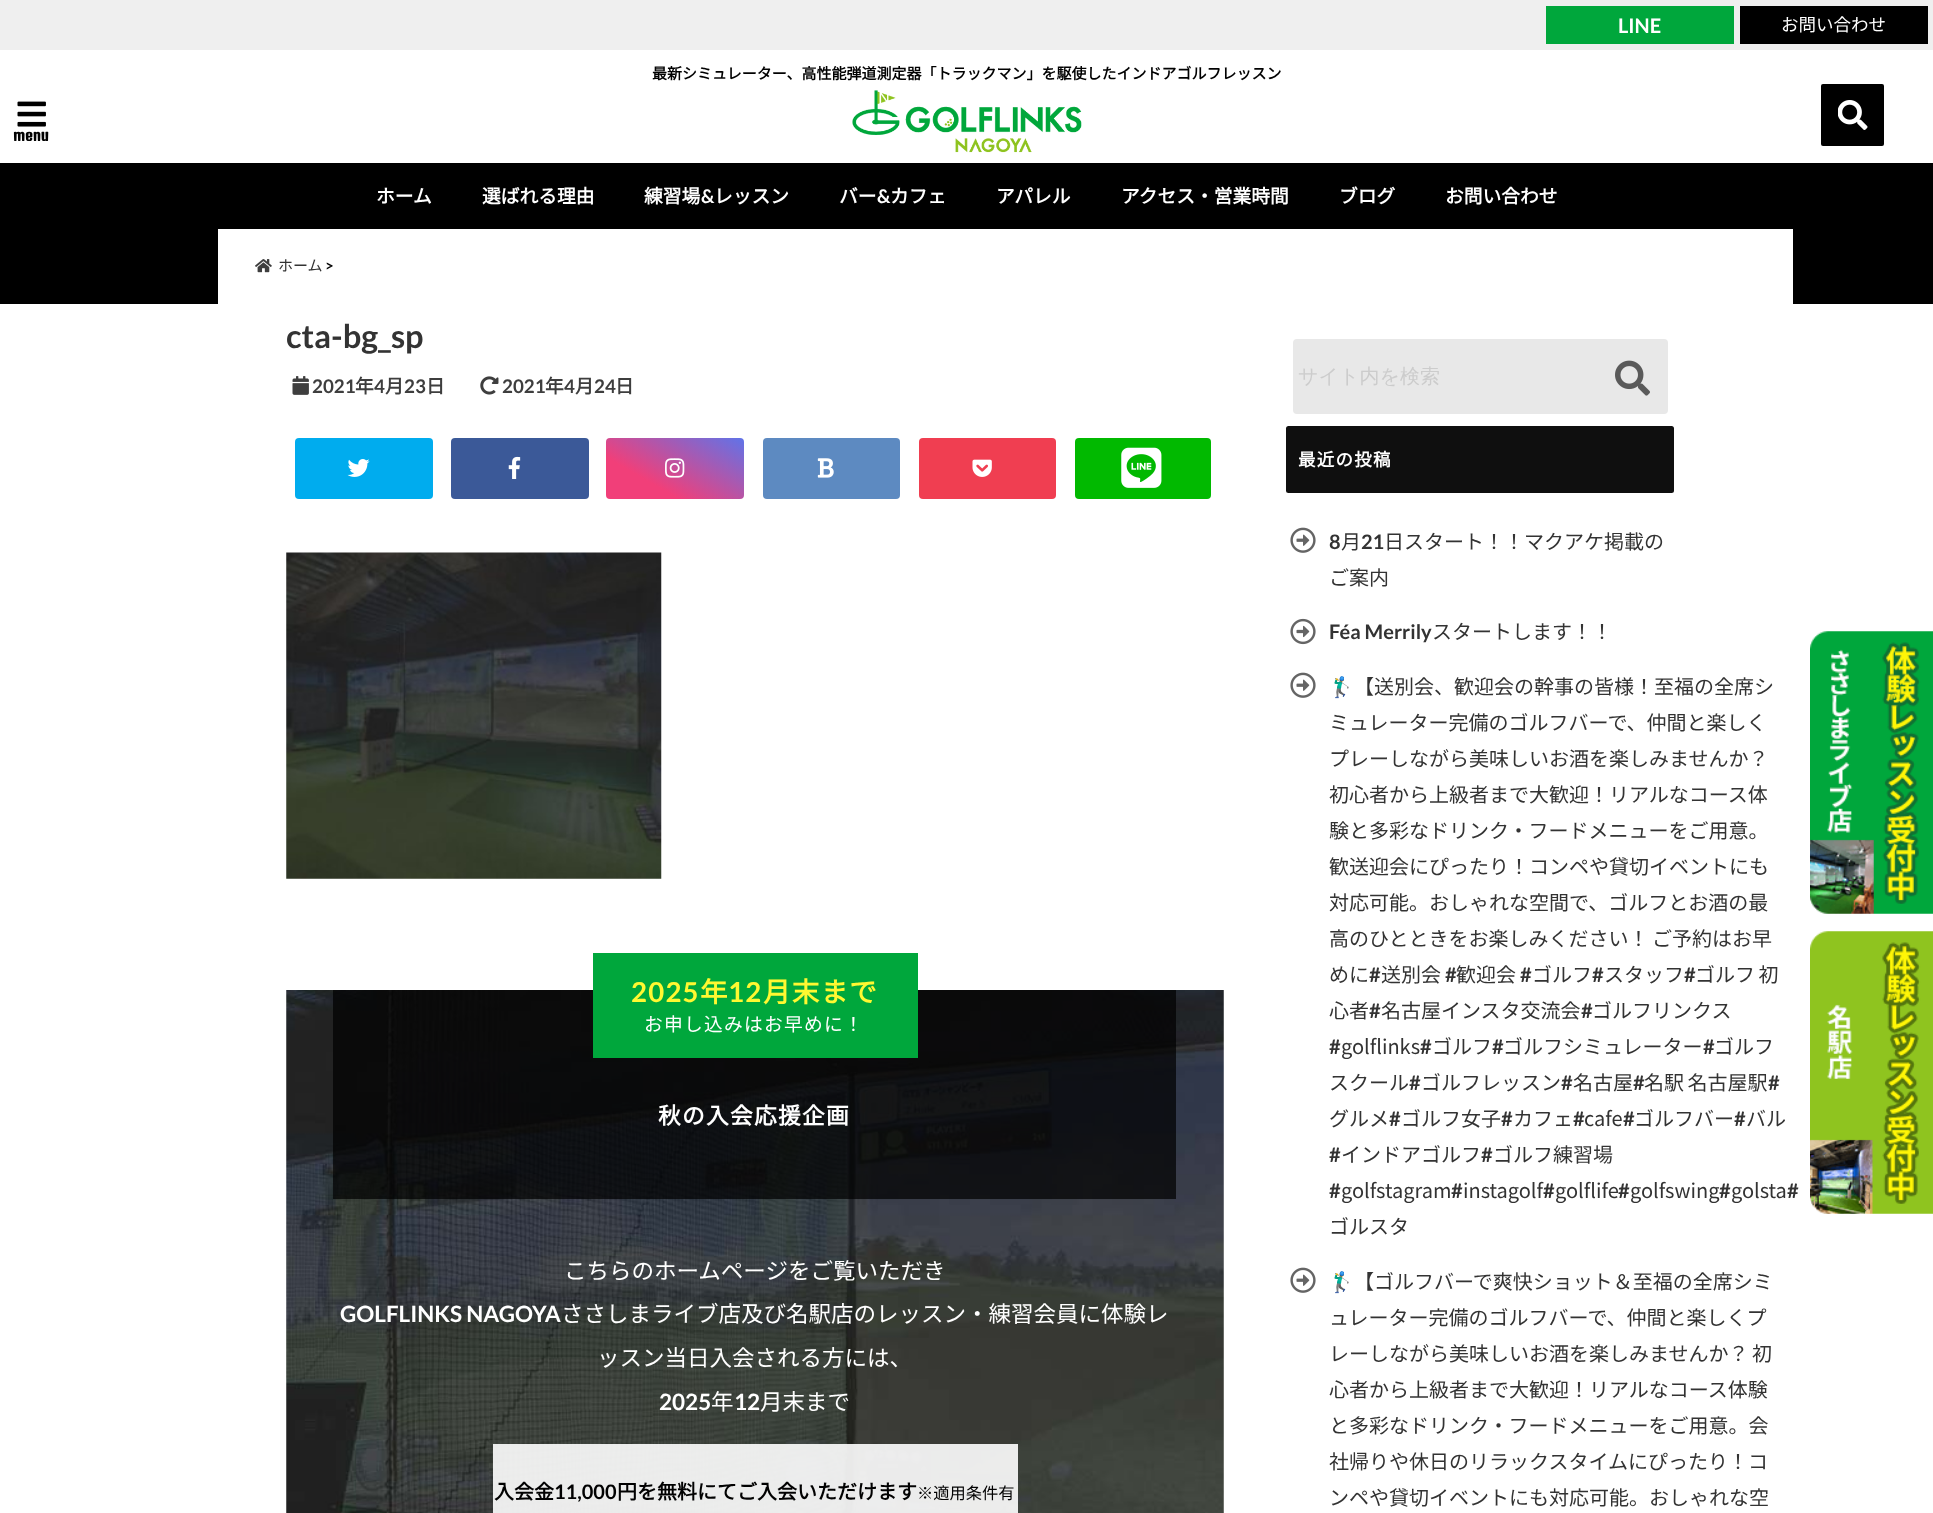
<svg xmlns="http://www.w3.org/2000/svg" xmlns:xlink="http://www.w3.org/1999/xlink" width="1933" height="1513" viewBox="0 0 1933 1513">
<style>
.cls-1{font:bold 20px Lato;fill:#ffffff}
.cls-2{font:100 17.5px Noto Sans JP;fill:#ffffff}
.cls-3{font:bold 15px Noto Sans JP;fill:#010101}
.cls-4{font:bold 15px Denk One;fill:#010101}
.cls-5{font:bold 18.75px Noto Sans JP;fill:#ffffff}
.cls-6{font:bold 18.75px Lato;fill:#ffffff}
.cls-7{font:100 15px Noto Sans JP;fill:#333333}
.cls-8{font:bold 15px Lato;fill:#010101}
.cls-9{font:bold 32.5px Lato;fill:#333333}
.cls-10{font:bold 18.75px Lato;fill:#3e3e3e}
.cls-11{font:bold 18.75px Noto Sans JP;fill:#3e3e3e}
.cls-12{font:bold 27.5px Lato;letter-spacing:1.25px;fill:#fff831}
.cls-13{font:bold 27.5px Noto Sans JP;letter-spacing:1.25px;fill:#fff831}
.cls-14{font:100 18.75px Noto Sans JP;letter-spacing:1.25px;fill:#ffffff}
.cls-15{font:bold 22.75px Noto Sans JP;letter-spacing:1.25px;fill:#ffffff}
.cls-16{font:100 22.5px Noto Sans JP;fill:#ffffff}
.cls-17{font:bold 22.5px Lato;fill:#ffffff}
.cls-18{font:bold 20px Noto Sans JP;fill:#010101}
.cls-19{font:bold 20px Lato;fill:#010101}
.cls-20{font:100 16.25px Noto Sans JP;fill:#010101}
.cls-21{font:500 20px WenQuanYi Zen Hei;fill:#cccccc}
.cls-22{font:bold 17.5px Noto Sans JP;letter-spacing:1.25px;fill:#ffffff}
.cls-23{font:bold 20px Lato;fill:#333333}
.cls-24{font:100 20px Noto Sans JP;fill:#333333}
.cls-25{font:20px Noto Color Emoji;fill:#333333}
</style>
<defs>
<linearGradient id="g1" gradientUnits="userSpaceOnUse" x1="645" y1="521" x2="714" y2="401"><stop offset="0.26" stop-color="#f13f79"/><stop offset="1" stop-color="#427eff"/></linearGradient>
</defs>
<rect width="100%" height="100%" fill="#ffffff"/>
<rect fill="#efefef" x="0" y="0" width="1933" height="50"/>
<rect fill="#00a73c" x="1546" y="6" width="188" height="38"/>
<rect fill="#000000" x="1740" y="6" width="188" height="38"/>
<image xlink:href="image0.png" x="17" y="101" width="29" height="26"/>
<image xlink:href="image1.png" x="852" y="90" width="230" height="63"/>
<rect fill="#000000" x="1821" y="84" width="63" height="62" rx="2"/>
<image xlink:href="image2.png" x="1838" y="100" width="30" height="30"/>
<rect fill="#000000" x="0" y="163" width="1933" height="141"/>
<rect fill="#ffffff" x="218" y="229" width="1575" height="75"/>
<image xlink:href="image3.png" x="255" y="259" width="17" height="14"/>
<image xlink:href="image4.png" x="292" y="376" width="17" height="19"/>
<image xlink:href="image5.png" x="480" y="376" width="19" height="19"/>
<rect fill="#00acee" x="295" y="438" width="138" height="61" rx="4"/>
<image xlink:href="image6.png" x="347" y="459" width="23" height="18"/>
<rect fill="#3b5998" x="451" y="438" width="138" height="61" rx="4"/>
<image xlink:href="image7.png" x="508" y="456" width="13" height="23"/>
<rect fill="url(#g1)" x="606" y="438" width="138" height="61" rx="4"/>
<image xlink:href="image8.png" x="665" y="458" width="20" height="20"/>
<rect fill="#5d8ac1" x="763" y="438" width="137" height="61" rx="4"/>
<image xlink:href="image9.png" x="817" y="458" width="17" height="20"/>
<rect fill="#f03e51" x="919" y="438" width="137" height="61" rx="4"/>
<image xlink:href="image10.png" x="972" y="459" width="20" height="18"/>
<rect fill="#01b900" x="1075" y="438" width="136" height="61" rx="4"/>
<image xlink:href="image11.png" x="1121" y="447" width="41" height="41"/>
<image xlink:href="image12.png" x="286" y="552" width="376" height="327"/>
<image xlink:href="image13.png" x="286" y="990" width="938" height="523"/>
<rect fill="#000000" fill-opacity="0.7" x="333" y="990" width="843" height="209"/>
<rect fill="#00a73c" x="593" y="953" width="325" height="105"/>
<rect fill="#ffffff" fill-opacity="0.9" x="493" y="1444" width="525" height="69"/>
<image xlink:href="image14.png" x="1810" y="631" width="123" height="283"/>
<image xlink:href="image15.png" x="1810" y="931" width="123" height="283"/>
<rect fill="#e8e8e8" x="1293" y="339" width="375" height="75" rx="4"/>
<image xlink:href="image16.png" x="1615" y="360" width="35" height="36"/>
<rect fill="#0f0f0f" x="1286" y="426" width="388" height="67" rx="2.5"/>
<image xlink:href="image17.png" x="1290" y="527" width="26" height="26"/>
<image xlink:href="image18.png" x="1290" y="618" width="26" height="27"/>
<image xlink:href="image17.png" x="1290" y="672" width="26" height="26"/>
<image xlink:href="image17.png" x="1290" y="1267" width="26" height="26"/>
<text class="cls-1" x="1618" y="33">LINE</text>
<text class="cls-2" x="1781" y="31">お問い合わせ</text>
<text class="cls-3" x="652" y="79">最新シミュレーター、高性能弾道測定器「トラックマン」を駆使したインドアゴルフレッスン</text>
<text class="cls-4" x="13" y="141">menu</text>
<text class="cls-5" x="376" y="203">ホーム</text>
<text class="cls-5" x="482" y="203">選ばれる理由</text>
<text class="cls-5" x="644" y="203">練習場</text>
<text class="cls-6" x="701" y="203">&amp;</text>
<text class="cls-5" x="714" y="203">レッスン</text>
<text class="cls-5" x="839" y="203">バー</text>
<text class="cls-6" x="877" y="203">&amp;</text>
<text class="cls-5" x="890" y="203">カフェ</text>
<text class="cls-5" x="996" y="203">アパレル</text>
<text class="cls-5" x="1121" y="203">アクセス・営業時間</text>
<text class="cls-5" x="1339" y="203">ブログ</text>
<text class="cls-5" x="1445" y="203">お問い合わせ</text>
<text class="cls-7" x="278" y="271">ホーム</text>
<text class="cls-8" x="325" y="271">&gt;</text>
<text class="cls-9" x="286" y="348">cta-bg_sp</text>
<text class="cls-10" x="312" y="393">2021</text>
<text class="cls-11" x="355" y="393">年</text>
<text class="cls-10" x="374" y="393">4</text>
<text class="cls-11" x="385" y="393">月</text>
<text class="cls-10" x="404" y="393">23</text>
<text class="cls-11" x="426" y="393">日</text>
<text class="cls-10" x="502" y="393">2021</text>
<text class="cls-11" x="545" y="393">年</text>
<text class="cls-10" x="564" y="393">4</text>
<text class="cls-11" x="575" y="393">月</text>
<text class="cls-10" x="594" y="393">24</text>
<text class="cls-11" x="615" y="393">日</text>
<text class="cls-12" x="631" y="1002">2025</text>
<text class="cls-13" x="700" y="1002">年</text>
<text class="cls-12" x="728" y="1002">12</text>
<text class="cls-13" x="763" y="1002">月末まで</text>
<text class="cls-14" x="644" y="1031">お申し込みはお早めに！</text>
<text class="cls-15" x="658" y="1124">秋の入会応援企画</text>
<text class="cls-16" x="564" y="1279">こちらのホームページをご覧いただき</text>
<text class="cls-17" x="340" y="1322">GOLFLINKS NAGOYA</text>
<text class="cls-16" x="561" y="1322">ささしまライブ店及び名駅店のレッスン・練習会員に体験レ</text>
<text class="cls-16" x="597" y="1366">ッスン当日入会される方には、</text>
<text class="cls-17" x="659" y="1410">2025</text>
<text class="cls-16" x="711" y="1410">年</text>
<text class="cls-17" x="734" y="1410">12</text>
<text class="cls-16" x="760" y="1410">月末まで</text>
<text class="cls-18" x="494" y="1499">入会金</text>
<text class="cls-19" x="554" y="1499">11,000</text>
<text class="cls-18" x="617" y="1499">円を無料にてご入会いただけます</text>
<text class="cls-20" x="917" y="1499">※適用条件有</text>
<text class="cls-21" x="1298" y="383">サイト内を検索</text>
<text class="cls-22" x="1298" y="466">最近の投稿</text>
<text class="cls-23" x="1329" y="549">8</text>
<text class="cls-24" x="1341" y="549">月</text>
<text class="cls-23" x="1361" y="549">21</text>
<text class="cls-24" x="1384" y="549">日スタート！！マクアケ掲載の</text>
<text class="cls-24" x="1329" y="585">ご案内</text>
<text class="cls-23" x="1329" y="639">Féa Merrily</text>
<text class="cls-24" x="1432" y="639">スタートします！！</text>
<text class="cls-25" x="1329" y="694">🏌️‍♂️</text>
<text class="cls-24" x="1354" y="694">【送別会、歓迎会の幹事の皆様！至福の全席シ</text>
<text class="cls-24"><tspan x="1329" y="730">ミュレーター完備のゴルフバーで、仲間と楽しく</tspan><tspan x="1329" y="766">プレーしながら美味しいお酒を楽しみませんか？</tspan><tspan x="1329" y="802">初心者から上級者まで大歓迎！リアルなコース体</tspan><tspan x="1329" y="838">験と多彩なドリンク・フードメニューをご用意。</tspan><tspan x="1329" y="874">歓送迎会にぴったり！コンペや貸切イベントにも</tspan><tspan x="1329" y="910">対応可能。おしゃれな空間で、ゴルフとお酒の最</tspan><tspan x="1329" y="946" word-spacing="-1">高のひとときをお楽しみください！ ご予約はお早</tspan><tspan x="1329" y="982">めに</tspan></text>
<text class="cls-23" x="1369" y="982">#</text>
<text class="cls-24" x="1381" y="982">送別会</text>
<text class="cls-23" x="1445" y="982">#</text>
<text class="cls-24" x="1456" y="982">歓迎会</text>
<text class="cls-23" x="1520" y="982">#</text>
<text class="cls-24" x="1532" y="982">ゴルフ</text>
<text class="cls-23" x="1592" y="982">#</text>
<text class="cls-24" x="1604" y="982">スタッフ</text>
<text class="cls-23" x="1684" y="982">#</text>
<text class="cls-24" x="1695" y="982" word-spacing="-1">ゴルフ 初</text>
<text class="cls-24" x="1329" y="1018">心者</text>
<text class="cls-23" x="1369" y="1018">#</text>
<text class="cls-24" x="1381" y="1018">名古屋インスタ交流会</text>
<text class="cls-23" x="1581" y="1018">#</text>
<text class="cls-24" x="1592" y="1018">ゴルフリンクス</text>
<text class="cls-23" x="1329" y="1054">#</text>
<text class="cls-24" x="1341" y="1054">golflinks</text>
<text class="cls-23" x="1420" y="1054">#</text>
<text class="cls-24" x="1432" y="1054">ゴルフ</text>
<text class="cls-23" x="1492" y="1054">#</text>
<text class="cls-24" x="1503" y="1054">ゴルフシミュレーター</text>
<text class="cls-23" x="1703" y="1054">#</text>
<text class="cls-24" x="1714" y="1054">ゴルフ</text>
<text class="cls-24" x="1329" y="1090">スクール</text>
<text class="cls-23" x="1409" y="1090">#</text>
<text class="cls-24" x="1421" y="1090">ゴルフレッスン</text>
<text class="cls-23" x="1561" y="1090">#</text>
<text class="cls-24" x="1573" y="1090">名古屋</text>
<text class="cls-23" x="1633" y="1090">#</text>
<text class="cls-24" x="1644" y="1090" word-spacing="-1">名駅 名古屋駅</text>
<text class="cls-23" x="1768" y="1090">#</text>
<text class="cls-24" x="1329" y="1126">グルメ</text>
<text class="cls-23" x="1389" y="1126">#</text>
<text class="cls-24" x="1401" y="1126">ゴルフ女子</text>
<text class="cls-23" x="1501" y="1126">#</text>
<text class="cls-24" x="1513" y="1126">カフェ</text>
<text class="cls-23" x="1573" y="1126">#</text>
<text class="cls-24" x="1584" y="1126">cafe</text>
<text class="cls-23" x="1623" y="1126">#</text>
<text class="cls-24" x="1634" y="1126">ゴルフバー</text>
<text class="cls-23" x="1734" y="1126">#</text>
<text class="cls-24" x="1746" y="1126">バル</text>
<text class="cls-23" x="1329" y="1162">#</text>
<text class="cls-24" x="1341" y="1162">インドアゴルフ</text>
<text class="cls-23" x="1481" y="1162">#</text>
<text class="cls-24" x="1493" y="1162">ゴルフ練習場</text>
<text class="cls-23" x="1329" y="1198">#</text>
<text class="cls-24" x="1341" y="1198">golfstagram</text>
<text class="cls-23" x="1451" y="1198">#</text>
<text class="cls-24" x="1463" y="1198">instagolf</text>
<text class="cls-23" x="1543" y="1198">#</text>
<text class="cls-24" x="1555" y="1198">golflife</text>
<text class="cls-23" x="1618" y="1198">#</text>
<text class="cls-24" x="1630" y="1198">golfswing</text>
<text class="cls-23" x="1719" y="1198">#</text>
<text class="cls-24" x="1731" y="1198">golsta</text>
<text class="cls-23" x="1787" y="1198">#</text>
<text class="cls-24" x="1329" y="1234">ゴルスタ</text>
<text class="cls-25" x="1329" y="1289">🏌️‍♂️</text>
<text class="cls-24" x="1354" y="1289">【ゴルフバーで爽快ショット＆至福の全席シミ</text>
<text class="cls-24"><tspan x="1329" y="1325">ュレーター完備のゴルフバーで、仲間と楽しくプ</tspan><tspan x="1329" y="1361" word-spacing="-1">レーしながら美味しいお酒を楽しみませんか？ 初</tspan><tspan x="1329" y="1397">心者から上級者まで大歓迎！リアルなコース体験</tspan><tspan x="1329" y="1433">と多彩なドリンク・フードメニューをご用意。会</tspan><tspan x="1329" y="1469">社帰りや休日のリラックスタイムにぴったり！コ</tspan><tspan x="1329" y="1505">ンペや貸切イベントにも対応可能。おしゃれな空</tspan></text>
</svg>
